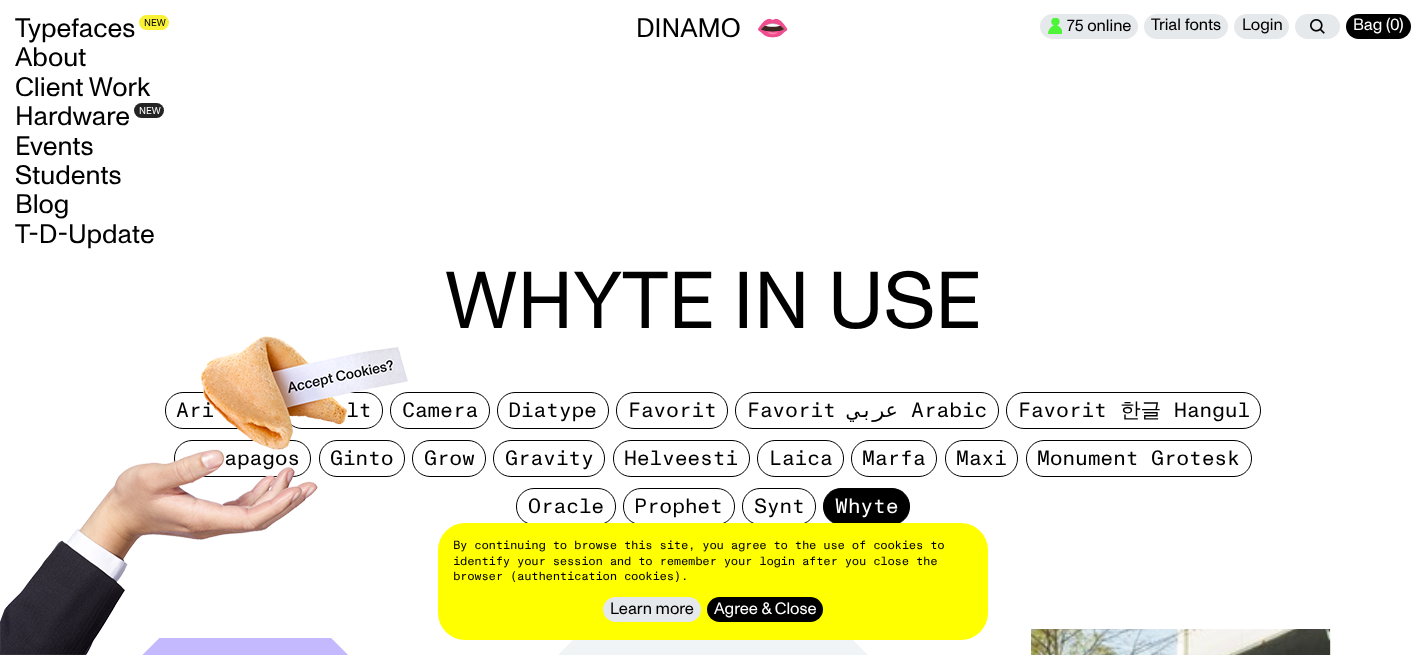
<svg xmlns="http://www.w3.org/2000/svg" xmlns:xlink="http://www.w3.org/1999/xlink" width="1426" height="655" viewBox="0 0 1426 655">
<style>
.cls-1{font:26.75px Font;fill:#000000}
.cls-2{font:10px Font;fill:#000000}
.cls-3{font:10px Font;fill:#ffffff}
.cls-4{font:26.75px Noto Color Emoji;fill:#000000}
.cls-5{font:16.5px Font;fill:#000000}
.cls-6{font:16.5px Font;fill:#ffffff}
.cls-7{font:80.25px Font;fill:#000000}
.cls-8{font:20.75px 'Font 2';letter-spacing:-0.2px;fill:#000000}
.cls-9{font:20.75px DejaVu Sans Mono;letter-spacing:-0.2px;direction:rtl;fill:#000000}
.cls-10{font:500 20.75px WenQuanYi Zen Hei;letter-spacing:-0.2px;fill:#000000}
.cls-11{font:20.75px 'Font 2';letter-spacing:-0.2px;fill:#ffffff}
.cls-12{font:11.9px 'Font 2';letter-spacing:-0.25px;fill:#000000}
</style>
<rect width="100%" height="100%" fill="#ffffff"/>
<rect fill="#f8f135" x="139" y="15" width="30" height="15" rx="7.5"/>
<rect fill="#242424" x="134" y="103" width="30" height="15" rx="7.5"/>
<rect fill="#e6e9eb" x="1040" y="14" width="98" height="25" rx="12.5"/>
<image xlink:href="image0.png" x="1048" y="18" width="14" height="16"/>
<rect fill="#e6e9eb" x="1144" y="14" width="84" height="25" rx="12.5"/>
<rect fill="#e6e9eb" x="1234" y="14" width="55" height="25" rx="12.5"/>
<rect fill="#e6e9eb" x="1295" y="14" width="45" height="25" rx="12.5"/>
<image xlink:href="image1.png" x="1310" y="19" width="15" height="15"/>
<rect fill="#000000" x="1346" y="14" width="65" height="25" rx="12.5"/>
<rect fill="none" stroke="#000000" x="165.5" y="392.5" width="111" height="36" rx="17.5"/>
<rect fill="none" stroke="#000000" x="284.5" y="392.5" width="98" height="36" rx="17.5"/>
<rect fill="none" stroke="#000000" x="390.5" y="392.5" width="99" height="36" rx="17.5"/>
<rect fill="none" stroke="#000000" x="497.5" y="392.5" width="111" height="36" rx="17.5"/>
<rect fill="none" stroke="#000000" x="616.5" y="392.5" width="111" height="36" rx="17.5"/>
<rect fill="none" stroke="#000000" x="735.5" y="392.5" width="263" height="36" rx="17.5"/>
<rect fill="none" stroke="#000000" x="1006.5" y="392.5" width="254" height="36" rx="17.5"/>
<rect fill="none" stroke="#000000" x="174.5" y="440.5" width="136" height="36" rx="17.5"/>
<rect fill="none" stroke="#000000" x="319.5" y="440.5" width="85" height="36" rx="17.5"/>
<rect fill="none" stroke="#000000" x="412.5" y="440.5" width="73" height="36" rx="17.5"/>
<rect fill="none" stroke="#000000" x="493.5" y="440.5" width="111" height="36" rx="17.5"/>
<rect fill="none" stroke="#000000" x="613.5" y="440.5" width="136" height="36" rx="17.5"/>
<rect fill="none" stroke="#000000" x="757.5" y="440.5" width="86" height="36" rx="17.5"/>
<rect fill="none" stroke="#000000" x="851.5" y="440.5" width="85" height="36" rx="17.5"/>
<rect fill="none" stroke="#000000" x="945.5" y="440.5" width="72" height="36" rx="17.5"/>
<rect fill="none" stroke="#000000" x="1026.5" y="440.5" width="225" height="36" rx="17.5"/>
<rect fill="none" stroke="#000000" x="516.5" y="488.5" width="99" height="36" rx="17.5"/>
<rect fill="none" stroke="#000000" x="623.5" y="488.5" width="111" height="36" rx="17.5"/>
<rect fill="none" stroke="#000000" x="742.5" y="488.5" width="73" height="36" rx="17.5"/>
<rect fill="#000000" stroke="#000000" x="823.5" y="488.5" width="86" height="36" rx="17.5"/>
<path fill="#f0f4f6" d="M159 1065L31 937V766L159 638H331L459 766V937L331 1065Z"/>
<image xlink:href="image2.png" x="142" y="638" width="206" height="17"/>
<path fill="#f0f4f6" d="M584 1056L499 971V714L584 629H842L927 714V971L842 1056Z"/>
<image xlink:href="image3.png" x="1031" y="629" width="300" height="26"/>
<rect fill="#ffff00" x="438" y="523" width="550" height="117" rx="27"/>
<rect fill="#e6e9eb" x="603" y="597" width="98" height="25" rx="12.5"/>
<rect fill="#000000" x="707" y="597" width="116" height="25" rx="12.5"/>
<text class="cls-1" x="15" y="37">Typefaces</text>
<text class="cls-2" x="144" y="26">NEW</text>
<text class="cls-1"><tspan x="15" y="66">About</tspan><tspan x="15" y="96">Client Work</tspan><tspan x="15" y="125">Hardware</tspan></text>
<text class="cls-3" x="139" y="114">NEW</text>
<text class="cls-1"><tspan x="15" y="155">Events</tspan><tspan x="15" y="184">Students</tspan><tspan x="15" y="213">Blog</tspan><tspan x="15" y="243">T-D-Update</tspan></text>
<text class="cls-1" x="636" y="37">DINAMO</text>
<text class="cls-4" x="756" y="37">👄</text>
<text class="cls-5" x="1067" y="31">75 online</text>
<text class="cls-5" x="1151" y="30">Trial fonts</text>
<text class="cls-5" x="1242" y="30">Login</text>
<text class="cls-6" x="1353" y="30">Bag (</text>
<text class="cls-6" x="1390" y="30">0</text>
<text class="cls-6" x="1399" y="30">)</text>
<text class="cls-7" x="445" y="328">WHYTE IN USE</text>
<text class="cls-8" x="176" y="417">Ari</text>
<text class="cls-8" x="346" y="417">lt</text>
<text class="cls-8" x="402" y="417">Camera</text>
<text class="cls-8" x="508" y="417">Diatype</text>
<text class="cls-8" x="628" y="417">Favorit</text>
<text class="cls-8" x="747" y="417">Favorit</text>
<text class="cls-9" x="898" y="417">عربي</text>
<text class="cls-8" x="911" y="417">Arabic</text>
<text class="cls-8" x="1018" y="417">Favorit</text>
<text class="cls-10" x="1120" y="417">한글</text>
<text class="cls-8" x="1174" y="417">Hangul</text>
<text class="cls-8" x="224" y="465">apagos</text>
<text class="cls-8" x="330" y="465">Ginto</text>
<text class="cls-8" x="424" y="465">Grow</text>
<text class="cls-8" x="505" y="465">Gravity</text>
<text class="cls-8" x="624" y="465">Helveesti</text>
<text class="cls-8" x="769" y="465">Laica</text>
<text class="cls-8" x="862" y="465">Marfa</text>
<text class="cls-8" x="956" y="465">Maxi</text>
<text class="cls-8" x="1037" y="465">Monument Grotesk</text>
<text class="cls-8" x="528" y="513">Oracle</text>
<text class="cls-8" x="634" y="513">Prophet</text>
<text class="cls-8" x="754" y="513">Synt</text>
<text class="cls-11" x="835" y="513">Whyte</text>
<image xlink:href="image5.png" x="0" y="449" width="318" height="206"/>
<image xlink:href="image4.png" x="200" y="336" width="208" height="114"/>
<text class="cls-12"><tspan x="453" y="549">By continuing to browse this site, you agree to the use of cookies to</tspan><tspan x="453" y="565">identify your session and to remember your login after you close the</tspan><tspan x="453" y="580">browser (authentication cookies).</tspan></text>
<text class="cls-5" x="610" y="614">Learn more</text>
<text class="cls-6" x="714" y="614">Agree &amp; Close</text>
</svg>
